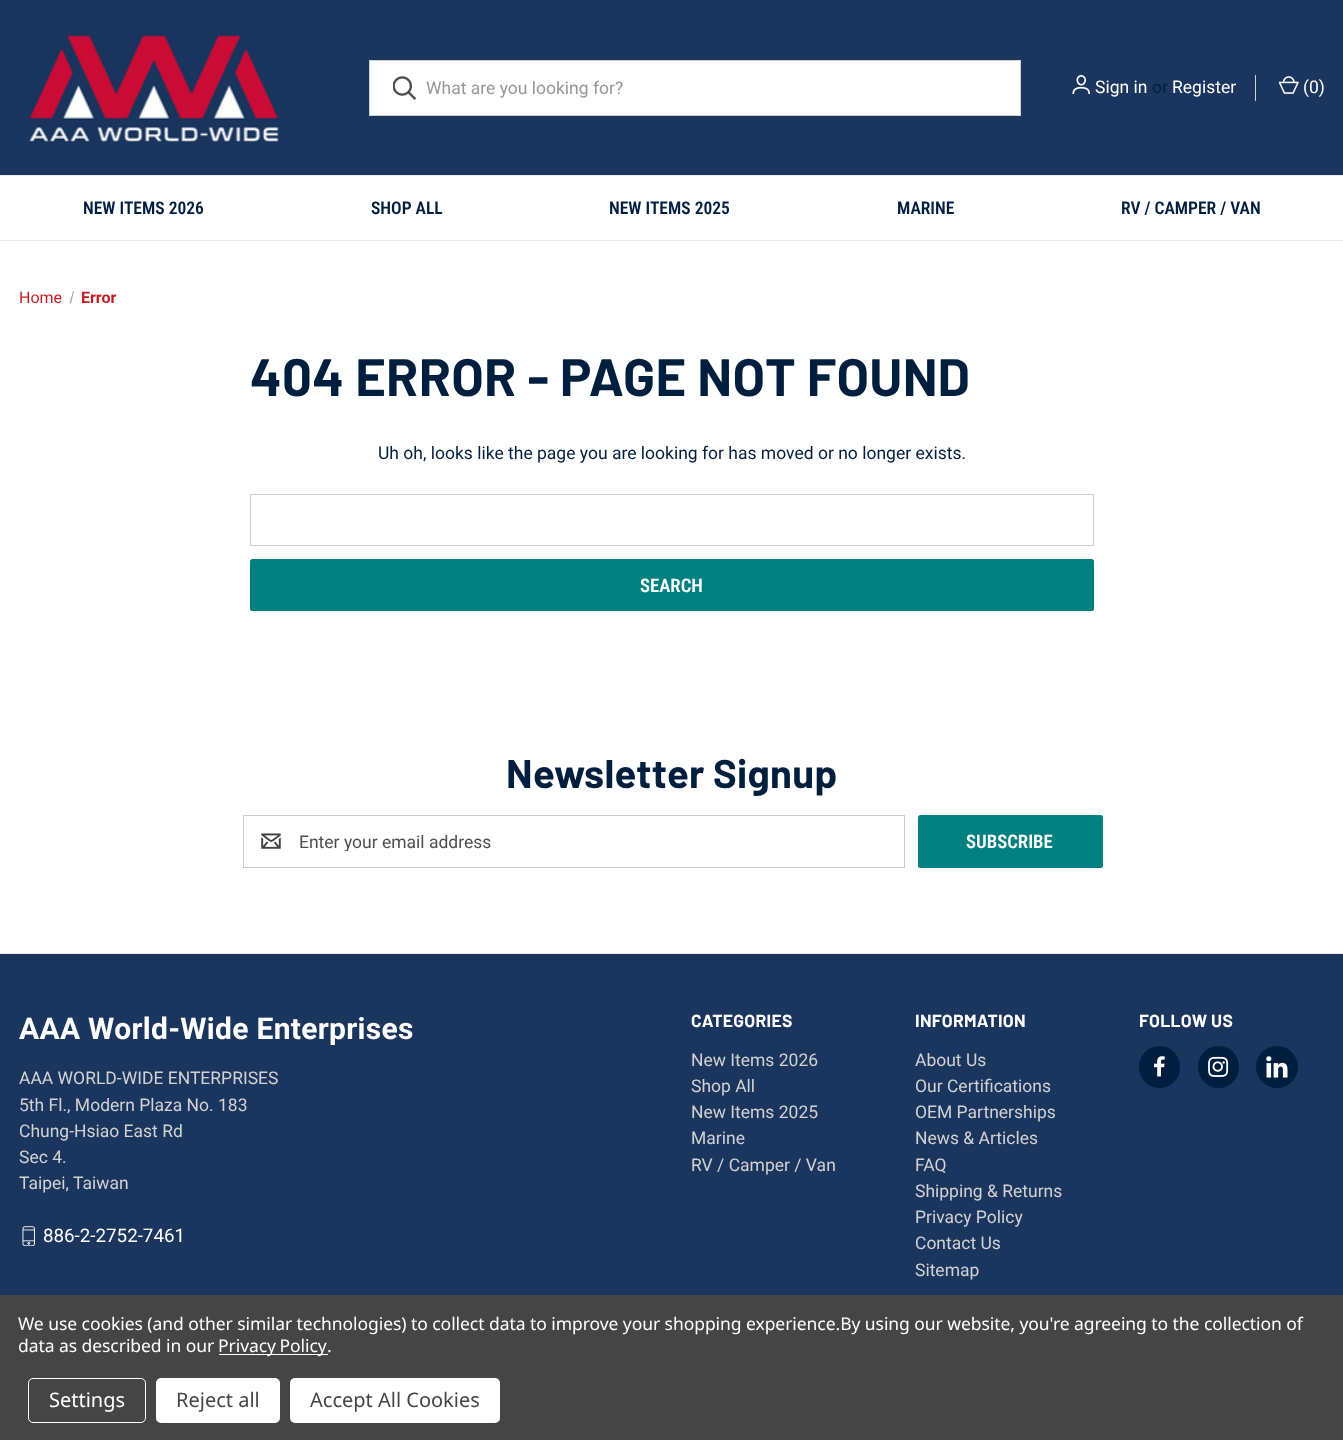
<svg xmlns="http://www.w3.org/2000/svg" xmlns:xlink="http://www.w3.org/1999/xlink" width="1343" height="1440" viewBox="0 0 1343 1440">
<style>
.cls-1{font:17.5px Roboto;fill:#969696}
.cls-2{font:17.5px Roboto;fill:#ffffff}
.cls-3{font:17.5px Roboto;fill:#001f3f}
.cls-4{font:600 17.5px Roboto Condensed;fill:#001f3f}
.cls-5{font:16px Roboto;fill:#c41c22}
.cls-6{font:bold 16px Roboto;fill:#c41c22}
.cls-7{font:bold 52.5px Barlow;letter-spacing:0.3px;fill:#001f3f}
.cls-8{font:600 18.75px Roboto Condensed;fill:#ffffff}
.cls-9{font:bold 40px Barlow;letter-spacing:0.3px;fill:#001f3f}
.cls-10{font:17.5px Roboto;fill:#4e4e4e}
.cls-11{font:bold 30px Roboto;letter-spacing:0.3px;fill:#ffffff}
.cls-12{font:17.5px Roboto;fill:#d2d2d2}
.cls-13{font:18.75px Roboto;fill:#ffffff}
.cls-14{font:bold 17.5px Barlow;letter-spacing:0.3px;fill:#ffffff}
.cls-15{font:17.5px Noto Sans;letter-spacing:-0.06px;fill:#ffffff}
.cls-16{font:20px Noto Sans;fill:#ffffff}
.cls-17{font:20px Noto Sans;fill:#454545}
</style>
<defs>
<clipPath id="clip1"><rect x="300" y="831" width="586" height="20"/></clipPath>
</defs>
<rect width="100%" height="100%" fill="#ffffff"/>
<rect fill="#1a355e" x="0" y="0" width="1343" height="175"/>
<image xlink:href="image0.png" x="29" y="34" width="250" height="109"/>
<rect fill="#ffffff" stroke="#d2d2d2" x="369.5" y="60.5" width="651" height="55"/>
<image xlink:href="image1.png" x="393" y="76" width="23" height="24"/>
<image xlink:href="image2.png" x="1072" y="75" width="19" height="19"/>
<rect fill="#d2d2d2" x="1255" y="75" width="1" height="26"/>
<image xlink:href="image3.png" x="1279" y="76" width="20" height="18"/>
<rect fill="#ebebeb" x="0" y="175" width="1343" height="1"/>
<rect fill="#ebebeb" x="0" y="240" width="1343" height="1"/>
<path fill="#a3a3a3" d="M73 291H74L71 303.5H69.5Z"/>
<rect fill="none" stroke="#cccccc" x="250.5" y="494.5" width="843" height="51"/>
<rect fill="#008080" x="250" y="559" width="844" height="52" rx="2.5"/>
<rect fill="none" stroke="#cccccc" x="243.5" y="815.5" width="661" height="52"/>
<image xlink:href="image4.png" x="261" y="833" width="20" height="16"/>
<rect fill="#008080" x="918" y="815" width="185" height="53" rx="2.5"/>
<rect fill="#1a355e" x="0" y="954" width="1343" height="341"/>
<rect fill="#ebebeb" x="0" y="953" width="1343" height="1"/>
<image xlink:href="image5.png" x="22" y="1226" width="13" height="20"/>
<rect fill="#001f3f" x="1139" y="1046" width="41" height="42" rx="20.5"/>
<image xlink:href="image6.png" x="1154" y="1056" width="11" height="21"/>
<rect fill="#001f3f" x="1198" y="1046" width="41" height="42" rx="20.5"/>
<image xlink:href="image7.png" x="1208" y="1056" width="21" height="21"/>
<circle fill="#001f3f" cx="1277" cy="1067" r="21"/>
<image xlink:href="image8.png" x="1266" y="1056" width="22" height="22"/>
<rect fill="#454545" x="0" y="1295" width="1343" height="145"/>
<rect fill="#ffffff" x="219" y="1354" width="109" height="1"/>
<rect fill="none" stroke="#ffffff" x="28.5" y="1378.5" width="117" height="44" rx="4.5"/>
<rect fill="#ffffff" x="156" y="1378" width="124" height="45" rx="5"/>
<rect fill="#ffffff" x="290" y="1378" width="210" height="45" rx="5"/>
<text class="cls-1" x="426" y="94">What are you looking for?</text>
<text class="cls-2" x="1095" y="93">Sign in</text>
<text class="cls-3" x="1152" y="93">or</text>
<text class="cls-2" x="1172" y="93">Register</text>
<text class="cls-2" x="1303" y="93">(0)</text>
<text class="cls-4" x="83" y="214">NEW ITEMS 2026</text>
<text class="cls-4" x="371" y="214">SHOP ALL</text>
<text class="cls-4" x="609" y="214">NEW ITEMS 2025</text>
<text class="cls-4" x="897" y="214">MARINE</text>
<text class="cls-4" x="1121" y="214">RV / CAMPER / VAN</text>
<text class="cls-5" x="19" y="303">Home</text>
<text class="cls-6" x="81" y="303">Error</text>
<text class="cls-7" x="250" y="396">404 ERROR - PAGE NOT FOUND</text>
<text class="cls-3" x="378" y="459">Uh oh, looks like the page you are looking for has moved or no longer exists.</text>
<text class="cls-8" x="640" y="592">SEARCH</text>
<text class="cls-9" x="506" y="788">Newsletter Signup</text>
<g clip-path="url(#clip1)">
<text class="cls-10" x="299" y="848">Enter your email address</text>
</g>
<text class="cls-8" x="966" y="848">SUBSCRIBE</text>
<text class="cls-11" x="19" y="1039">AAA World-Wide Enterprises</text>
<text class="cls-12"><tspan x="19" y="1084">AAA WORLD-WIDE ENTERPRISES</tspan><tspan x="19" y="1111">5th Fl., Modern Plaza No. 183</tspan><tspan x="19" y="1137">Chung-Hsiao East Rd</tspan><tspan x="19" y="1163">Sec 4.</tspan><tspan x="19" y="1189">Taipei, Taiwan</tspan></text>
<text class="cls-13" x="43" y="1242">886-2-2752-7461</text>
<text class="cls-14" x="691" y="1027">CATEGORIES</text>
<text class="cls-12"><tspan x="691" y="1066">New Items 2026</tspan><tspan x="691" y="1092">Shop All</tspan><tspan x="691" y="1118">New Items 2025</tspan><tspan x="691" y="1144">Marine</tspan><tspan x="691" y="1171">RV / Camper / Van</tspan></text>
<text class="cls-14" x="915" y="1027">INFORMATION</text>
<text class="cls-12"><tspan x="915" y="1066">About Us</tspan><tspan x="915" y="1092">Our Certifications</tspan><tspan x="915" y="1118">OEM Partnerships</tspan><tspan x="915" y="1144">News &amp; Articles</tspan><tspan x="915" y="1171">FAQ</tspan><tspan x="915" y="1197">Shipping &amp; Returns</tspan><tspan x="915" y="1223">Privacy Policy</tspan><tspan x="915" y="1249">Contact Us</tspan><tspan x="915" y="1276">Sitemap</tspan></text>
<text class="cls-14" x="1139" y="1027">FOLLOW US</text>
<text class="cls-15"><tspan x="18" y="1330">We use cookies (and other similar technologies) to collect data to improve your shopping experience.By using our website, you're agreeing to the collection of</tspan><tspan x="18" y="1352">data as described in our</tspan></text>
<text class="cls-15" x="218" y="1352" word-spacing="-1">Privacy Policy</text>
<text class="cls-15" x="327" y="1352">.</text>
<text class="cls-16" x="49" y="1407">Settings</text>
<text class="cls-17" x="176" y="1407">Reject all</text>
<text class="cls-17" x="310" y="1407">Accept All Cookies</text>
</svg>
